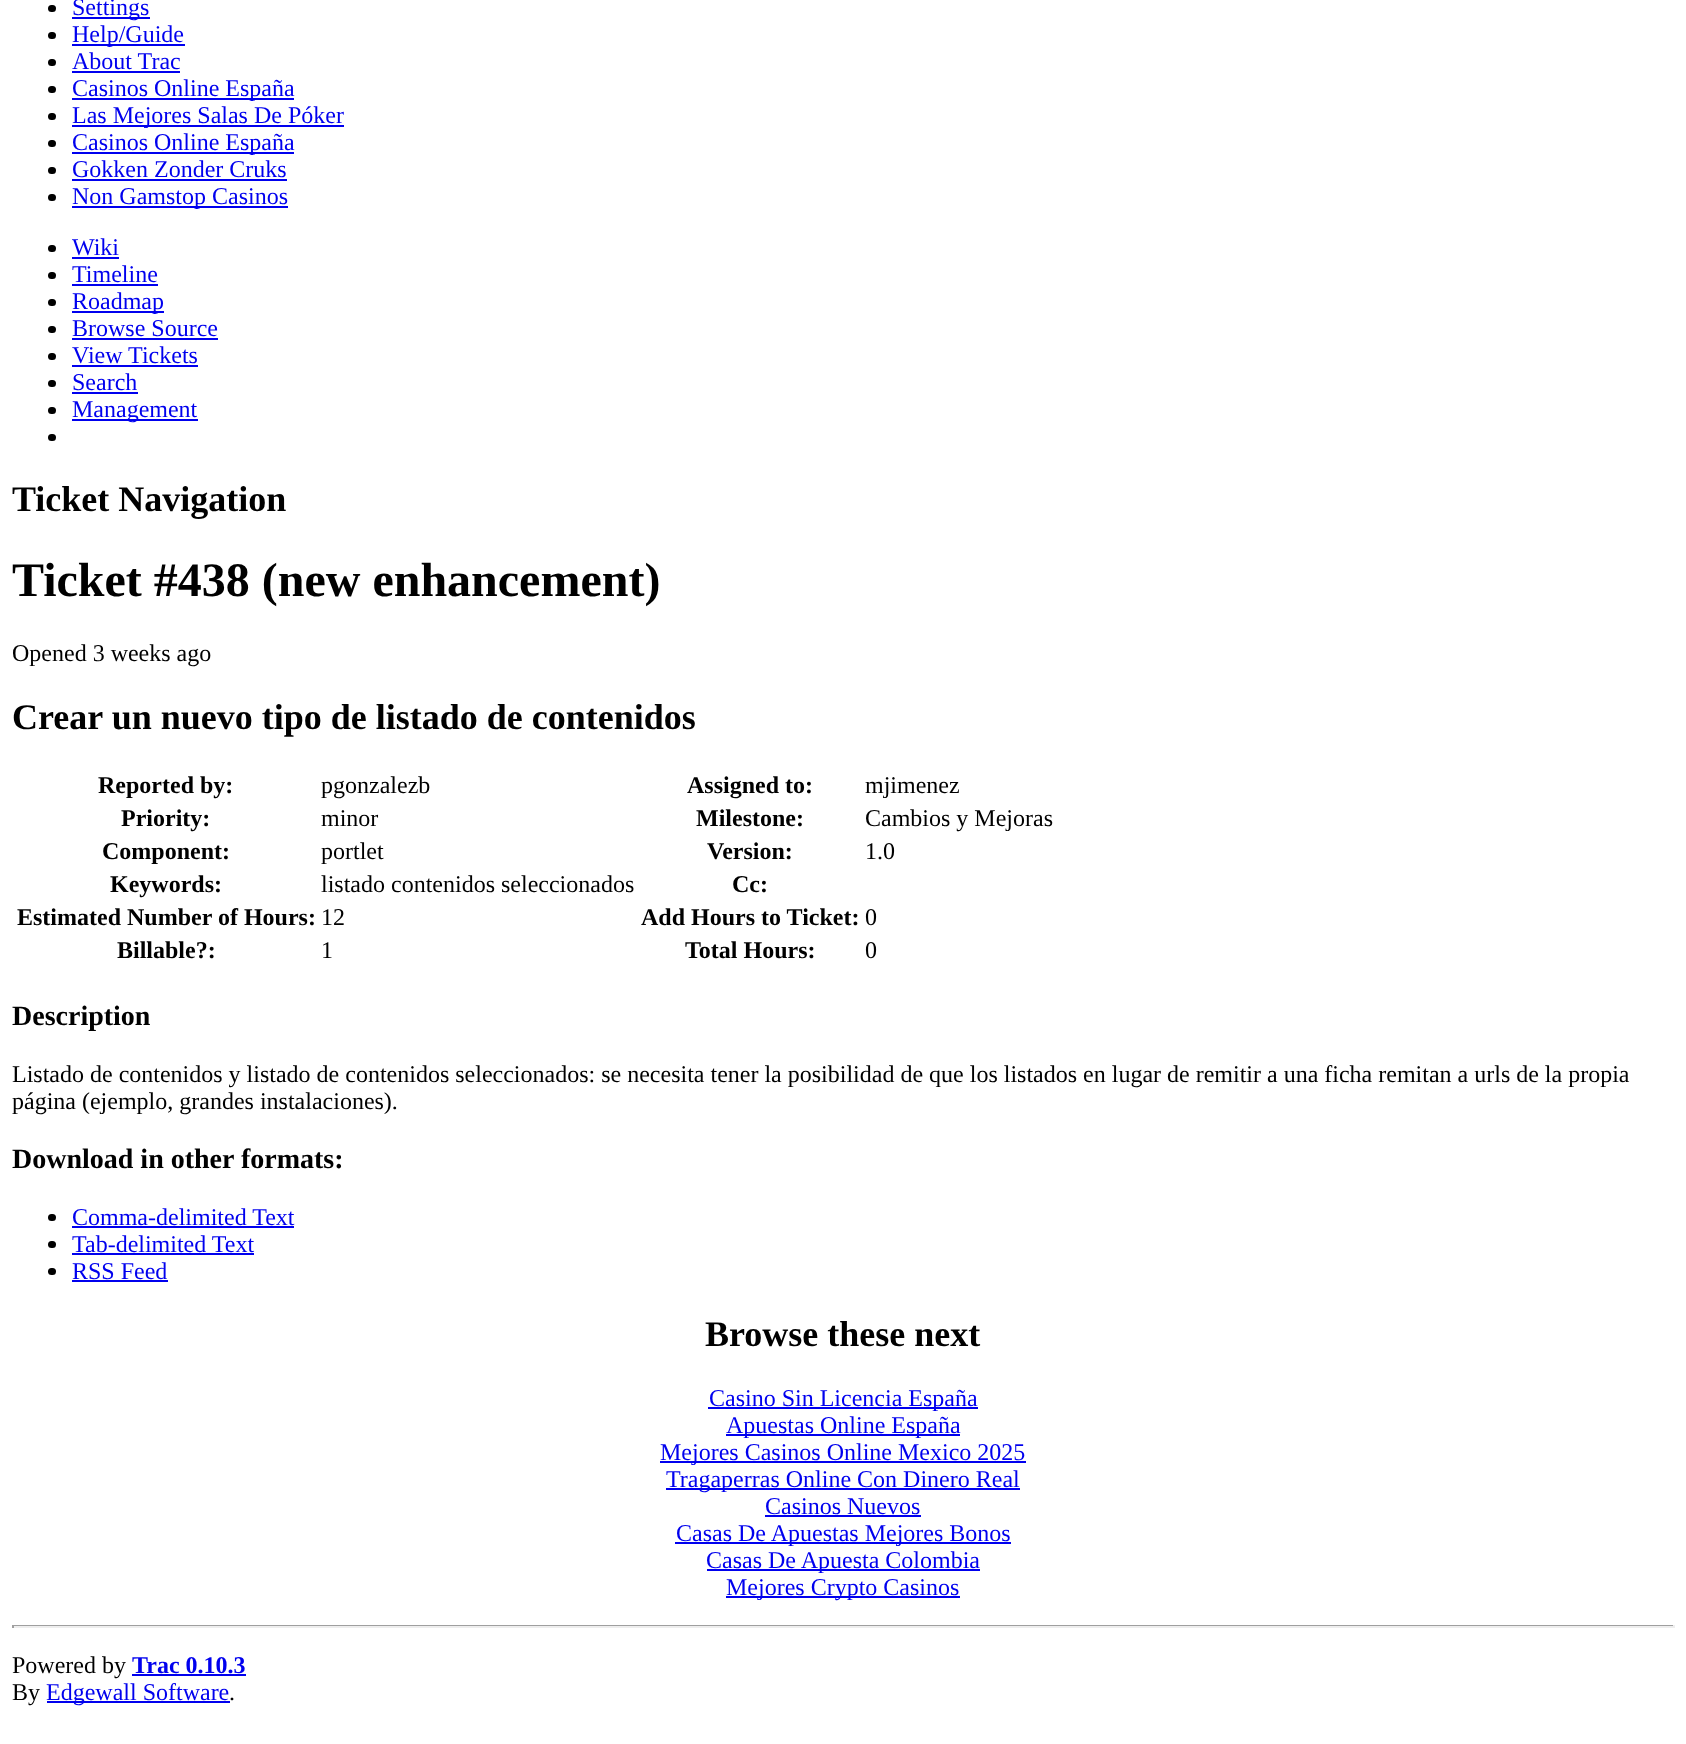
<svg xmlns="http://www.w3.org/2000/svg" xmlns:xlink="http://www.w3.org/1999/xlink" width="1686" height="1744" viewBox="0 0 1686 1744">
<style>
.cls-1{font:24px Liberation Serif;fill:#0000ee}
.cls-2{font:bold 36px Liberation Serif;fill:#000000}
.cls-3{font:bold 48px Liberation Serif;fill:#000000}
.cls-4{font:24px Liberation Serif;fill:#000000}
.cls-5{font:bold 24px Liberation Serif;fill:#000000}
.cls-6{font:bold 28px Liberation Serif;fill:#000000}
.cls-7{font:bold 24px Liberation Serif;fill:#0000ee}
</style>
<rect width="100%" height="100%" fill="#ffffff"/>
<rect fill="#000000" x="48" y="5" width="8" height="7" rx="3.5"/>
<rect fill="#0000ee" x="72" y="17" width="78" height="2"/>
<rect fill="#000000" x="48" y="32" width="8" height="7" rx="3.5"/>
<rect fill="#0000ee" x="72" y="44" width="113" height="2"/>
<rect fill="#000000" x="48" y="59" width="8" height="7" rx="3.5"/>
<rect fill="#0000ee" x="72" y="71" width="108" height="2"/>
<rect fill="#000000" x="48" y="86" width="8" height="7" rx="3.5"/>
<rect fill="#0000ee" x="72" y="98" width="222" height="2"/>
<rect fill="#000000" x="48" y="113" width="8" height="7" rx="3.5"/>
<rect fill="#0000ee" x="72" y="125" width="272" height="2"/>
<rect fill="#000000" x="48" y="140" width="8" height="7" rx="3.5"/>
<rect fill="#0000ee" x="72" y="152" width="222" height="2"/>
<rect fill="#000000" x="48" y="167" width="8" height="7" rx="3.5"/>
<rect fill="#0000ee" x="72" y="179" width="215" height="2"/>
<rect fill="#000000" x="48" y="194" width="8" height="7" rx="3.5"/>
<rect fill="#0000ee" x="72" y="206" width="216" height="2"/>
<rect fill="#000000" x="48" y="245" width="8" height="7" rx="3.5"/>
<rect fill="#0000ee" x="72" y="257" width="47" height="2"/>
<rect fill="#000000" x="48" y="272" width="8" height="7" rx="3.5"/>
<rect fill="#0000ee" x="72" y="284" width="86" height="2"/>
<rect fill="#000000" x="48" y="299" width="8" height="7" rx="3.5"/>
<rect fill="#0000ee" x="72" y="311" width="92" height="2"/>
<rect fill="#000000" x="48" y="326" width="8" height="7" rx="3.5"/>
<rect fill="#0000ee" x="72" y="338" width="146" height="2"/>
<rect fill="#000000" x="48" y="353" width="8" height="7" rx="3.5"/>
<rect fill="#0000ee" x="72" y="365" width="126" height="2"/>
<rect fill="#000000" x="48" y="380" width="8" height="7" rx="3.5"/>
<rect fill="#0000ee" x="72" y="392" width="66" height="2"/>
<rect fill="#000000" x="48" y="407" width="8" height="7" rx="3.5"/>
<rect fill="#0000ee" x="72" y="419" width="126" height="2"/>
<rect fill="#000000" x="48" y="434" width="8" height="7" rx="3.5"/>
<rect fill="#000000" x="48" y="1214" width="8" height="7" rx="3.5"/>
<rect fill="#0000ee" x="72" y="1226" width="222" height="2"/>
<rect fill="#000000" x="48" y="1241" width="8" height="7" rx="3.5"/>
<rect fill="#0000ee" x="72" y="1253" width="182" height="2"/>
<rect fill="#000000" x="48" y="1268" width="8" height="7" rx="3.5"/>
<rect fill="#0000ee" x="72" y="1280" width="96" height="2"/>
<rect fill="#0000ee" x="708" y="1407" width="270" height="2"/>
<rect fill="#0000ee" x="726" y="1434" width="234" height="2"/>
<rect fill="#0000ee" x="660" y="1461" width="366" height="2"/>
<rect fill="#0000ee" x="666" y="1488" width="354" height="2"/>
<rect fill="#0000ee" x="765" y="1515" width="156" height="2"/>
<rect fill="#0000ee" x="675" y="1542" width="336" height="2"/>
<rect fill="#0000ee" x="707" y="1569" width="273" height="2"/>
<rect fill="#0000ee" x="726" y="1596" width="234" height="2"/>
<rect fill="#9f9f9f" x="12" y="1625" width="1662" height="1"/>
<rect fill="#eeeeee" x="1673" y="1625" width="2" height="3"/>
<rect fill="#eeeeee" x="12" y="1626" width="1662" height="2"/>
<rect fill="#9f9f9f" x="12" y="1625" width="2" height="3"/>
<rect fill="#0000ee" x="132" y="1674" width="114" height="2"/>
<rect fill="#0000ee" x="47" y="1701" width="183" height="2"/>
<text class="cls-1"><tspan x="72" y="15">Settings</tspan><tspan x="72" y="42">Help/Guide</tspan><tspan x="72" y="69">About Trac</tspan><tspan x="72" y="96">Casinos Online España</tspan><tspan x="72" y="123">Las Mejores Salas De Póker</tspan><tspan x="72" y="150">Casinos Online España</tspan><tspan x="72" y="177">Gokken Zonder Cruks</tspan><tspan x="72" y="204">Non Gamstop Casinos</tspan></text>
<text class="cls-1"><tspan x="72" y="255">Wiki</tspan><tspan x="72" y="282">Timeline</tspan><tspan x="72" y="309">Roadmap</tspan><tspan x="72" y="336">Browse Source</tspan><tspan x="72" y="363">View Tickets</tspan><tspan x="72" y="390">Search</tspan><tspan x="72" y="417">Management</tspan></text>
<text class="cls-2" x="12" y="511">Ticket Navigation</text>
<text class="cls-3" x="12" y="596">Ticket #438 (new enhancement)</text>
<text class="cls-4" x="12" y="661">Opened 3 weeks ago</text>
<text class="cls-2" x="12" y="729">Crear un nuevo tipo de listado de contenidos</text>
<text class="cls-5" x="98" y="793">Reported by:</text>
<text class="cls-4" x="321" y="793">pgonzalezb</text>
<text class="cls-5" x="687" y="793">Assigned to:</text>
<text class="cls-4" x="865" y="793">mjimenez</text>
<text class="cls-5" x="121" y="826">Priority:</text>
<text class="cls-4" x="321" y="826">minor</text>
<text class="cls-5" x="696" y="826">Milestone:</text>
<text class="cls-4" x="865" y="826">Cambios y Mejoras</text>
<text class="cls-5" x="102" y="859">Component:</text>
<text class="cls-4" x="321" y="859">portlet</text>
<text class="cls-5" x="707" y="859">Version:</text>
<text class="cls-4" x="865" y="859">1.0</text>
<text class="cls-5" x="110" y="892">Keywords:</text>
<text class="cls-4" x="321" y="892">listado contenidos seleccionados</text>
<text class="cls-5" x="732" y="892">Cc:</text>
<text class="cls-5" x="17" y="925">Estimated Number of Hours:</text>
<text class="cls-4" x="321" y="925">12</text>
<text class="cls-5" x="641" y="925">Add Hours to Ticket:</text>
<text class="cls-4" x="865" y="925">0</text>
<text class="cls-5" x="117" y="958">Billable?:</text>
<text class="cls-4" x="321" y="958">1</text>
<text class="cls-5" x="685" y="958">Total Hours:</text>
<text class="cls-4" x="865" y="958">0</text>
<text class="cls-6" x="12" y="1025">Description</text>
<text class="cls-4"><tspan x="12" y="1082">Listado de contenidos y listado de contenidos seleccionados: se necesita tener la posibilidad de que los listados en lugar de remitir a una ficha remitan a urls de la propia</tspan><tspan x="12" y="1109">página (ejemplo, grandes instalaciones).</tspan></text>
<text class="cls-6" x="12" y="1168">Download in other formats:</text>
<text class="cls-1"><tspan x="72" y="1225">Comma-delimited Text</tspan><tspan x="72" y="1252">Tab-delimited Text</tspan><tspan x="72" y="1279">RSS Feed</tspan></text>
<text class="cls-2" x="705" y="1346">Browse these next</text>
<text class="cls-1" x="709" y="1406">Casino Sin Licencia España</text>
<text class="cls-1" x="726" y="1433">Apuestas Online España</text>
<text class="cls-1" x="660" y="1460">Mejores Casinos Online Mexico 2025</text>
<text class="cls-1" x="666" y="1487">Tragaperras Online Con Dinero Real</text>
<text class="cls-1" x="765" y="1514">Casinos Nuevos</text>
<text class="cls-1" x="676" y="1541">Casas De Apuestas Mejores Bonos</text>
<text class="cls-1" x="706" y="1568">Casas De Apuesta Colombia</text>
<text class="cls-1" x="726" y="1595">Mejores Crypto Casinos</text>
<text class="cls-4" x="12" y="1673">Powered by</text>
<text class="cls-7" x="132" y="1673">Trac 0.10.3</text>
<text class="cls-4" x="12" y="1700">By</text>
<text class="cls-1" x="46" y="1700">Edgewall Software</text>
<text class="cls-4" x="229" y="1700">.</text>
</svg>
